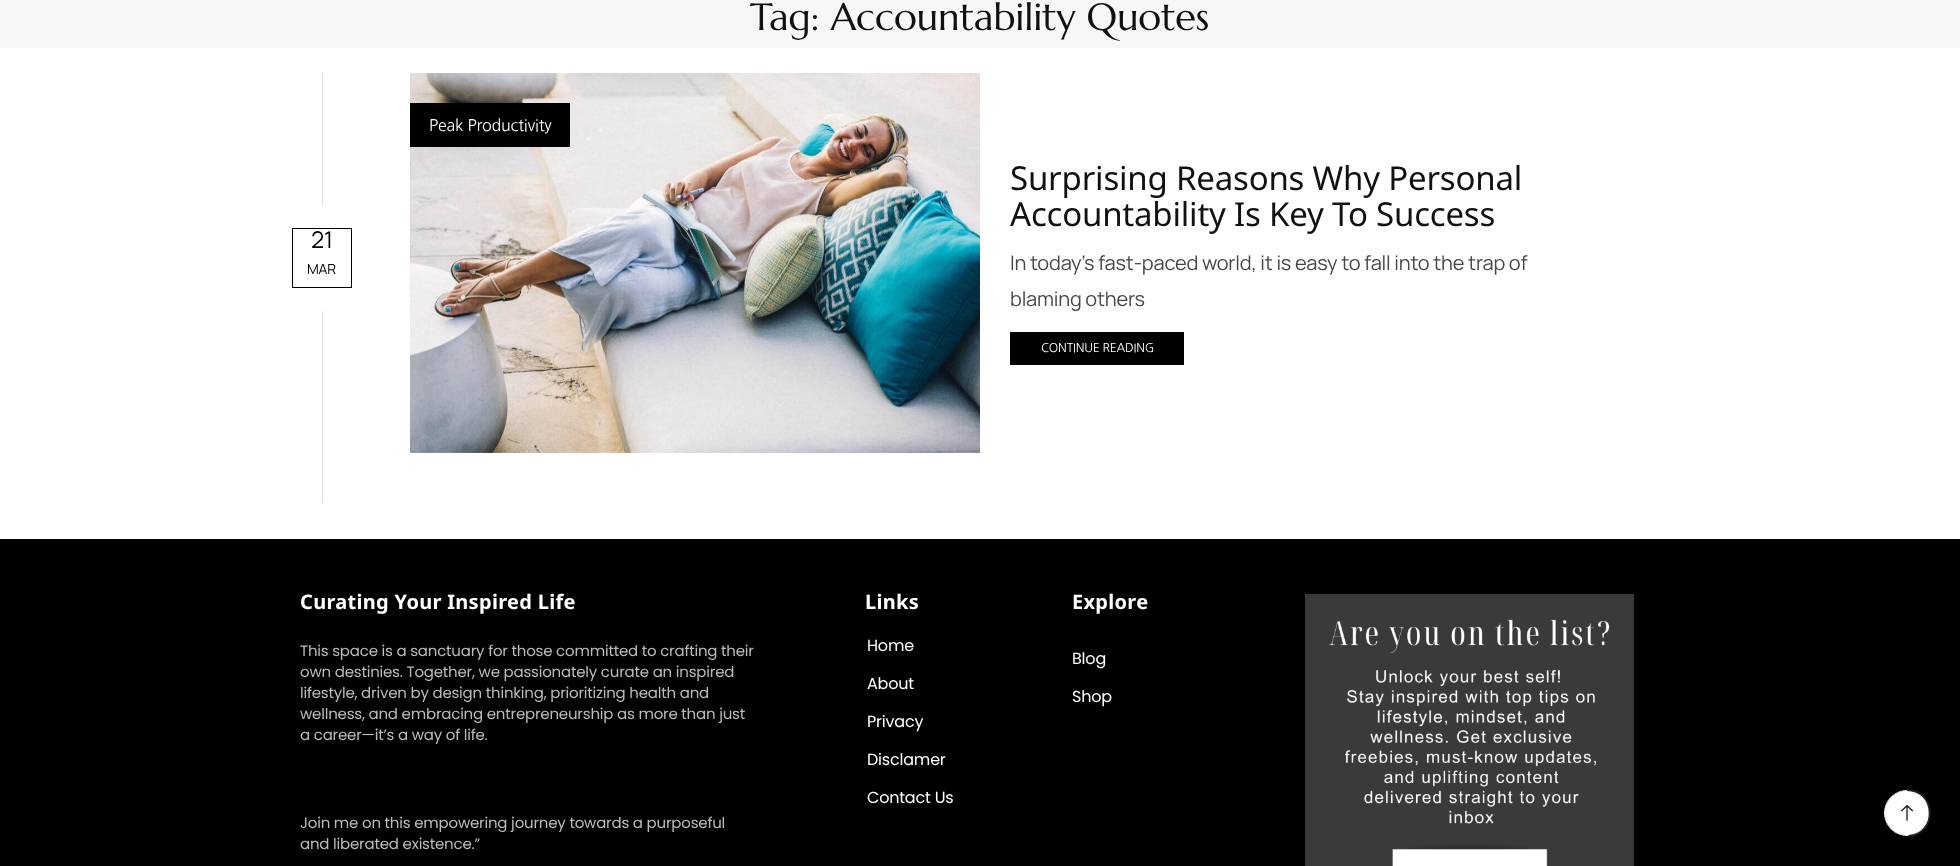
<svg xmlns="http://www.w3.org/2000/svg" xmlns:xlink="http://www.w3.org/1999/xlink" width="1960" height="866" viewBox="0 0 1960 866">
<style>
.cls-1{font:38px Marcellus;letter-spacing:-0.2px;fill:#111111}
.cls-2{font:16px NanumGothic;letter-spacing:-0.2px;fill:#ffffff}
.cls-3{font:33px Noto Sans;letter-spacing:-0.2px;fill:#111111}
.cls-4{font:20px Manrope;letter-spacing:-0.2px;fill:#474747}
.cls-5{font:12px NanumGothic;letter-spacing:-0.2px;fill:#ffffff}
.cls-6{font:23px Manrope;letter-spacing:-0.2px;fill:#000000}
.cls-7{font:14px Manrope;letter-spacing:-0.2px;fill:#000000}
.cls-8{font:bold 20px Noto Sans;letter-spacing:0.3px;fill:#ffffff}
.cls-9{font:15px Poppins;letter-spacing:-0.2px;fill:#bbbbbb}
.cls-10{font:16px Poppins;letter-spacing:-0.2px;fill:#ffffff}
</style>
<rect width="100%" height="100%" fill="#ffffff"/>
<rect fill="#f7f7f7" x="0" y="0" width="1960" height="48"/>
<rect fill="#e1e1e1" x="322" y="73" width="1" height="430"/>
<image xlink:href="image0.png" x="410" y="73" width="570" height="380"/>
<rect fill="#000000" x="410" y="103" width="160" height="44"/>
<rect fill="#000000" x="1010" y="332" width="174" height="33"/>
<rect fill="#ffffff" x="322" y="205" width="1" height="106"/>
<rect fill="none" stroke="#000000" x="292.5" y="228.5" width="59" height="59"/>
<rect fill="#000000" x="0" y="539" width="1960" height="327"/>
<image xlink:href="image1.png" x="1305" y="594" width="329" height="272"/>
<circle fill="#ffffff" stroke="#e1e1e1" cx="1907" cy="813" r="22.5"/>
<path fill="none" stroke="#222222" stroke-width="1.9" d="M1907 790C1936.5 790 1937.5 834.5 1908.5 836"/>
<image xlink:href="image2.png" x="1901" y="805" width="12" height="16"/>
<text class="cls-1" x="750" y="30">Tag: Accountability Quotes</text>
<text class="cls-2" x="429" y="131">Peak Productivity</text>
<text class="cls-3"><tspan x="1010" y="190">Surprising Reasons Why Personal</tspan><tspan x="1010" y="226">Accountability Is Key To Success</tspan></text>
<text class="cls-4"><tspan x="1010" y="270">In today’s fast-paced world, it is easy to fall into the trap of</tspan><tspan x="1010" y="306">blaming others</tspan></text>
<text class="cls-5" x="1041" y="352">CONTINUE READING</text>
<text class="cls-6" x="311" y="248">21</text>
<text class="cls-7" x="307" y="274">MAR</text>
<text class="cls-8" x="300" y="609">Curating Your Inspired Life</text>
<text class="cls-9"><tspan x="300" y="656">This space is a sanctuary for those committed to crafting their</tspan><tspan x="300" y="677">own destinies. Together, we passionately curate an inspired</tspan><tspan x="300" y="698">lifestyle, driven by design thinking, prioritizing health and</tspan><tspan x="300" y="719">wellness, and embracing entrepreneurship as more than just</tspan><tspan x="300" y="740">a career—it’s a way of life.</tspan></text>
<text class="cls-9"><tspan x="300" y="828">Join me on this empowering journey towards a purposeful</tspan><tspan x="300" y="849">and liberated existence.”</tspan></text>
<text class="cls-8" x="865" y="609">Links</text>
<text class="cls-10" x="867" y="651">Home</text>
<text class="cls-10" x="867" y="689">About</text>
<text class="cls-10" x="867" y="727">Privacy</text>
<text class="cls-10" x="867" y="765">Disclamer</text>
<text class="cls-10" x="867" y="803">Contact Us</text>
<text class="cls-8" x="1072" y="609">Explore</text>
<text class="cls-10" x="1072" y="664">Blog</text>
<text class="cls-10" x="1072" y="702">Shop</text>
</svg>
